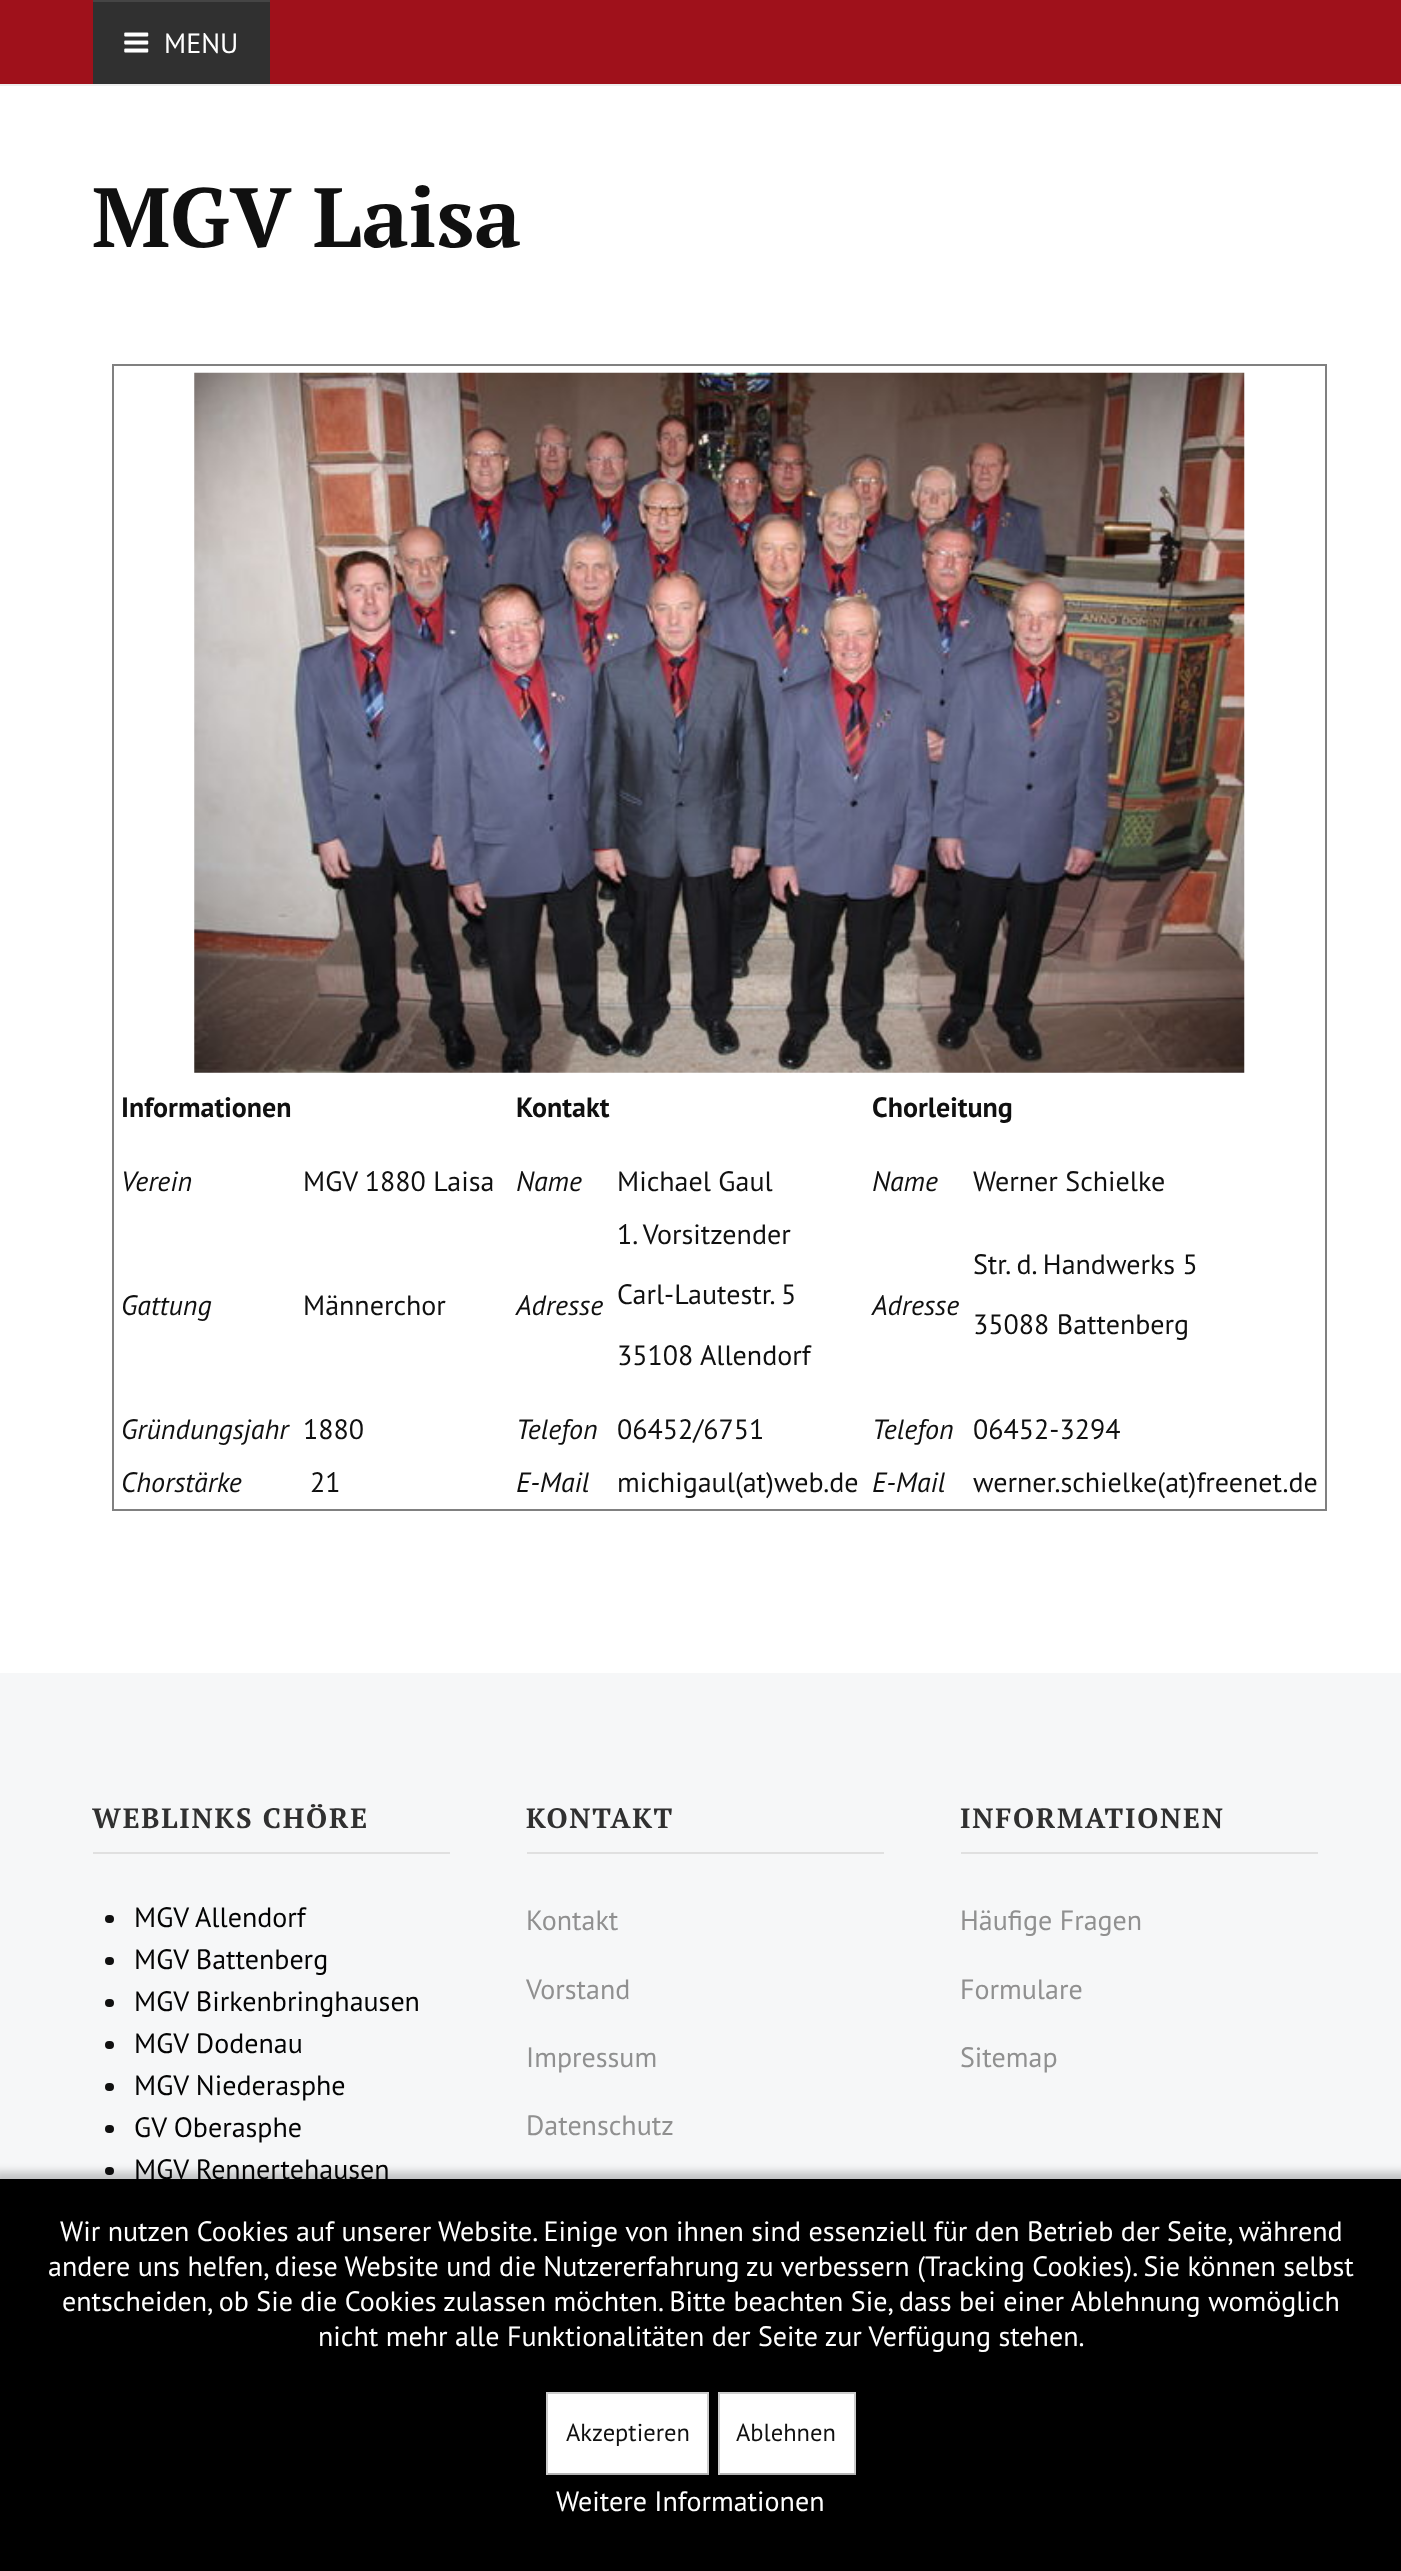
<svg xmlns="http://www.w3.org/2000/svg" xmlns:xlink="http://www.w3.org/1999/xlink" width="1401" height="2571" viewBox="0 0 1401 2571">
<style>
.cls-1{font:28px PT Sans;fill:#ffffff}
.cls-2{font:bold 84px PT Serif;fill:#101010}
.cls-3{font:bold 28px PT Sans;fill:#101010}
.cls-4{font:italic 28px PT Sans;fill:#101010}
.cls-5{font:28px PT Sans;fill:#101010}
.cls-6{font:bold 28px PT Serif;letter-spacing:1.75px;fill:#303030}
.cls-7{font:28px PT Sans;fill:#030303}
.cls-8{font:28px PT Sans;fill:#909090}
.cls-9{font:24.5px PT Sans;fill:#101010}
</style>
<rect width="100%" height="100%" fill="#ffffff"/>
<rect fill="#9f111b" x="0" y="0" width="1401" height="84"/>
<rect fill="#eeeeee" x="0" y="84" width="1401" height="2"/>
<rect fill="#303030" x="93" y="2" width="177" height="82"/>
<rect fill="#454545" x="93" y="0" width="177" height="2"/>
<image xlink:href="image0.png" x="124" y="32" width="25" height="21"/>
<rect fill="#808080" x="112" y="364" width="1215" height="2"/>
<rect fill="#808080" x="1325" y="364" width="2" height="1146"/>
<rect fill="#808080" x="112" y="1509" width="1215" height="2"/>
<rect fill="#808080" x="112" y="364" width="2" height="1146"/>
<image xlink:href="image1.png" x="194" y="372" width="1051" height="701"/>
<rect fill="#f6f7f8" x="0" y="1673" width="1401" height="506"/>
<rect fill="#e0e0e0" x="93" y="1852" width="357" height="2"/>
<rect fill="#101010" x="105" y="1915" width="9" height="8" rx="4"/>
<rect fill="#101010" x="105" y="1957" width="9" height="8" rx="4"/>
<rect fill="#101010" x="105" y="1999" width="9" height="8" rx="4"/>
<rect fill="#101010" x="105" y="2041" width="9" height="8" rx="4"/>
<rect fill="#101010" x="105" y="2083" width="9" height="8" rx="4"/>
<rect fill="#101010" x="105" y="2125" width="9" height="8" rx="4"/>
<rect fill="#101010" x="105" y="2167" width="9" height="8" rx="4"/>
<rect fill="#e0e0e0" x="527" y="1852" width="357" height="2"/>
<rect fill="#e0e0e0" x="961" y="1852" width="357" height="2"/>
<rect fill="#000000" fill-opacity="0.21" filter="blur(4.5px)" x="-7" y="2172" width="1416" height="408"/>
<text class="cls-1" x="164" y="53">MENU</text>
<text class="cls-2" x="92" y="247">MGV Laisa</text>
<text class="cls-3" x="121" y="1117">Informationen</text>
<text class="cls-3" x="516" y="1117">Kontakt</text>
<text class="cls-3" x="872" y="1117">Chorleitung</text>
<text class="cls-4" x="121" y="1191">Verein</text>
<text class="cls-5" x="303" y="1191">MGV 1880 Laisa</text>
<text class="cls-4" x="516" y="1191">Name</text>
<text class="cls-5" x="617" y="1191">Michael Gaul</text>
<text class="cls-4" x="872" y="1191">Name</text>
<text class="cls-5" x="973" y="1191">Werner Schielke</text>
<text class="cls-4" x="121" y="1315">Gattung</text>
<text class="cls-5" x="303" y="1315">Männerchor</text>
<text class="cls-4" x="516" y="1315">Adresse</text>
<text class="cls-5" x="617" y="1244">1. Vorsitzender</text>
<text class="cls-5" x="617" y="1304">Carl-Lautestr. 5</text>
<text class="cls-5" x="617" y="1365">35108 Allendorf</text>
<text class="cls-4" x="872" y="1315">Adresse</text>
<text class="cls-5" x="973" y="1274">Str. d. Handwerks 5</text>
<text class="cls-5" x="973" y="1334">35088 Battenberg</text>
<text class="cls-4" x="121" y="1439">Gründungsjahr</text>
<text class="cls-5" x="303" y="1439">1880</text>
<text class="cls-4" x="516" y="1439">Telefon</text>
<text class="cls-5" x="617" y="1439">06452/6751</text>
<text class="cls-4" x="872" y="1439">Telefon</text>
<text class="cls-5" x="973" y="1439">06452-3294</text>
<text class="cls-4" x="121" y="1492">Chorstärke</text>
<text class="cls-5" x="310" y="1492">21</text>
<text class="cls-4" x="516" y="1492">E-Mail</text>
<text class="cls-5" x="617" y="1492">michigaul(at)web.de</text>
<text class="cls-4" x="872" y="1492">E-Mail</text>
<text class="cls-5" x="973" y="1492">werner.schielke(at)freenet.de</text>
<text class="cls-6" x="92" y="1828">WEBLINKS CHÖRE</text>
<text class="cls-7"><tspan x="134" y="1927">MGV Allendorf</tspan><tspan x="134" y="1969">MGV Battenberg</tspan><tspan x="134" y="2011">MGV Birkenbringhausen</tspan><tspan x="134" y="2053">MGV Dodenau</tspan><tspan x="134" y="2095">MGV Niederasphe</tspan><tspan x="134" y="2137">GV Oberasphe</tspan><tspan x="134" y="2179">MGV Rennertehausen</tspan></text>
<text class="cls-6" x="526" y="1828">KONTAKT</text>
<text class="cls-8" x="526" y="1930">Kontakt</text>
<text class="cls-8" x="526" y="1999">Vorstand</text>
<text class="cls-8" x="526" y="2067">Impressum</text>
<text class="cls-8" x="526" y="2135">Datenschutz</text>
<text class="cls-6" x="960" y="1828">INFORMATIONEN</text>
<text class="cls-8" x="960" y="1930">Häufige Fragen</text>
<text class="cls-8" x="960" y="1999">Formulare</text>
<text class="cls-8" x="960" y="2067">Sitemap</text>
<rect fill="#000000" x="0" y="2179" width="1401" height="392"/>
<text class="cls-1" x="60" y="2241">Wir nutzen Cookies auf unserer Website. Einige von ihnen sind essenziell für den Betrieb der Seite, während</text>
<text class="cls-1" x="48" y="2276">andere uns helfen, diese Website und die Nutzererfahrung zu verbessern (Tracking Cookies). Sie können selbst</text>
<text class="cls-1" x="62" y="2311">entscheiden, ob Sie die Cookies zulassen möchten. Bitte beachten Sie, dass bei einer Ablehnung womöglich</text>
<text class="cls-1" x="318" y="2346">nicht mehr alle Funktionalitäten der Seite zur Verfügung stehen.</text>
<rect fill="#ffffff" x="548" y="2394" width="159" height="79"/>
<rect fill="#cccccc" x="546" y="2392" width="163" height="2"/>
<rect fill="#cccccc" x="707" y="2392" width="2" height="83"/>
<rect fill="#b3b3b3" x="546" y="2473" width="163" height="2"/>
<rect fill="#cccccc" x="546" y="2392" width="2" height="83"/>
<text class="cls-9" x="566" y="2441">Akzeptieren</text>
<rect fill="#ffffff" x="720" y="2394" width="134" height="79"/>
<rect fill="#cccccc" x="718" y="2392" width="138" height="2"/>
<rect fill="#cccccc" x="854" y="2392" width="2" height="83"/>
<rect fill="#b3b3b3" x="718" y="2473" width="138" height="2"/>
<rect fill="#cccccc" x="718" y="2392" width="2" height="83"/>
<text class="cls-9" x="736" y="2441">Ablehnen</text>
<text class="cls-1" x="556" y="2511">Weitere Informationen</text>
</svg>
